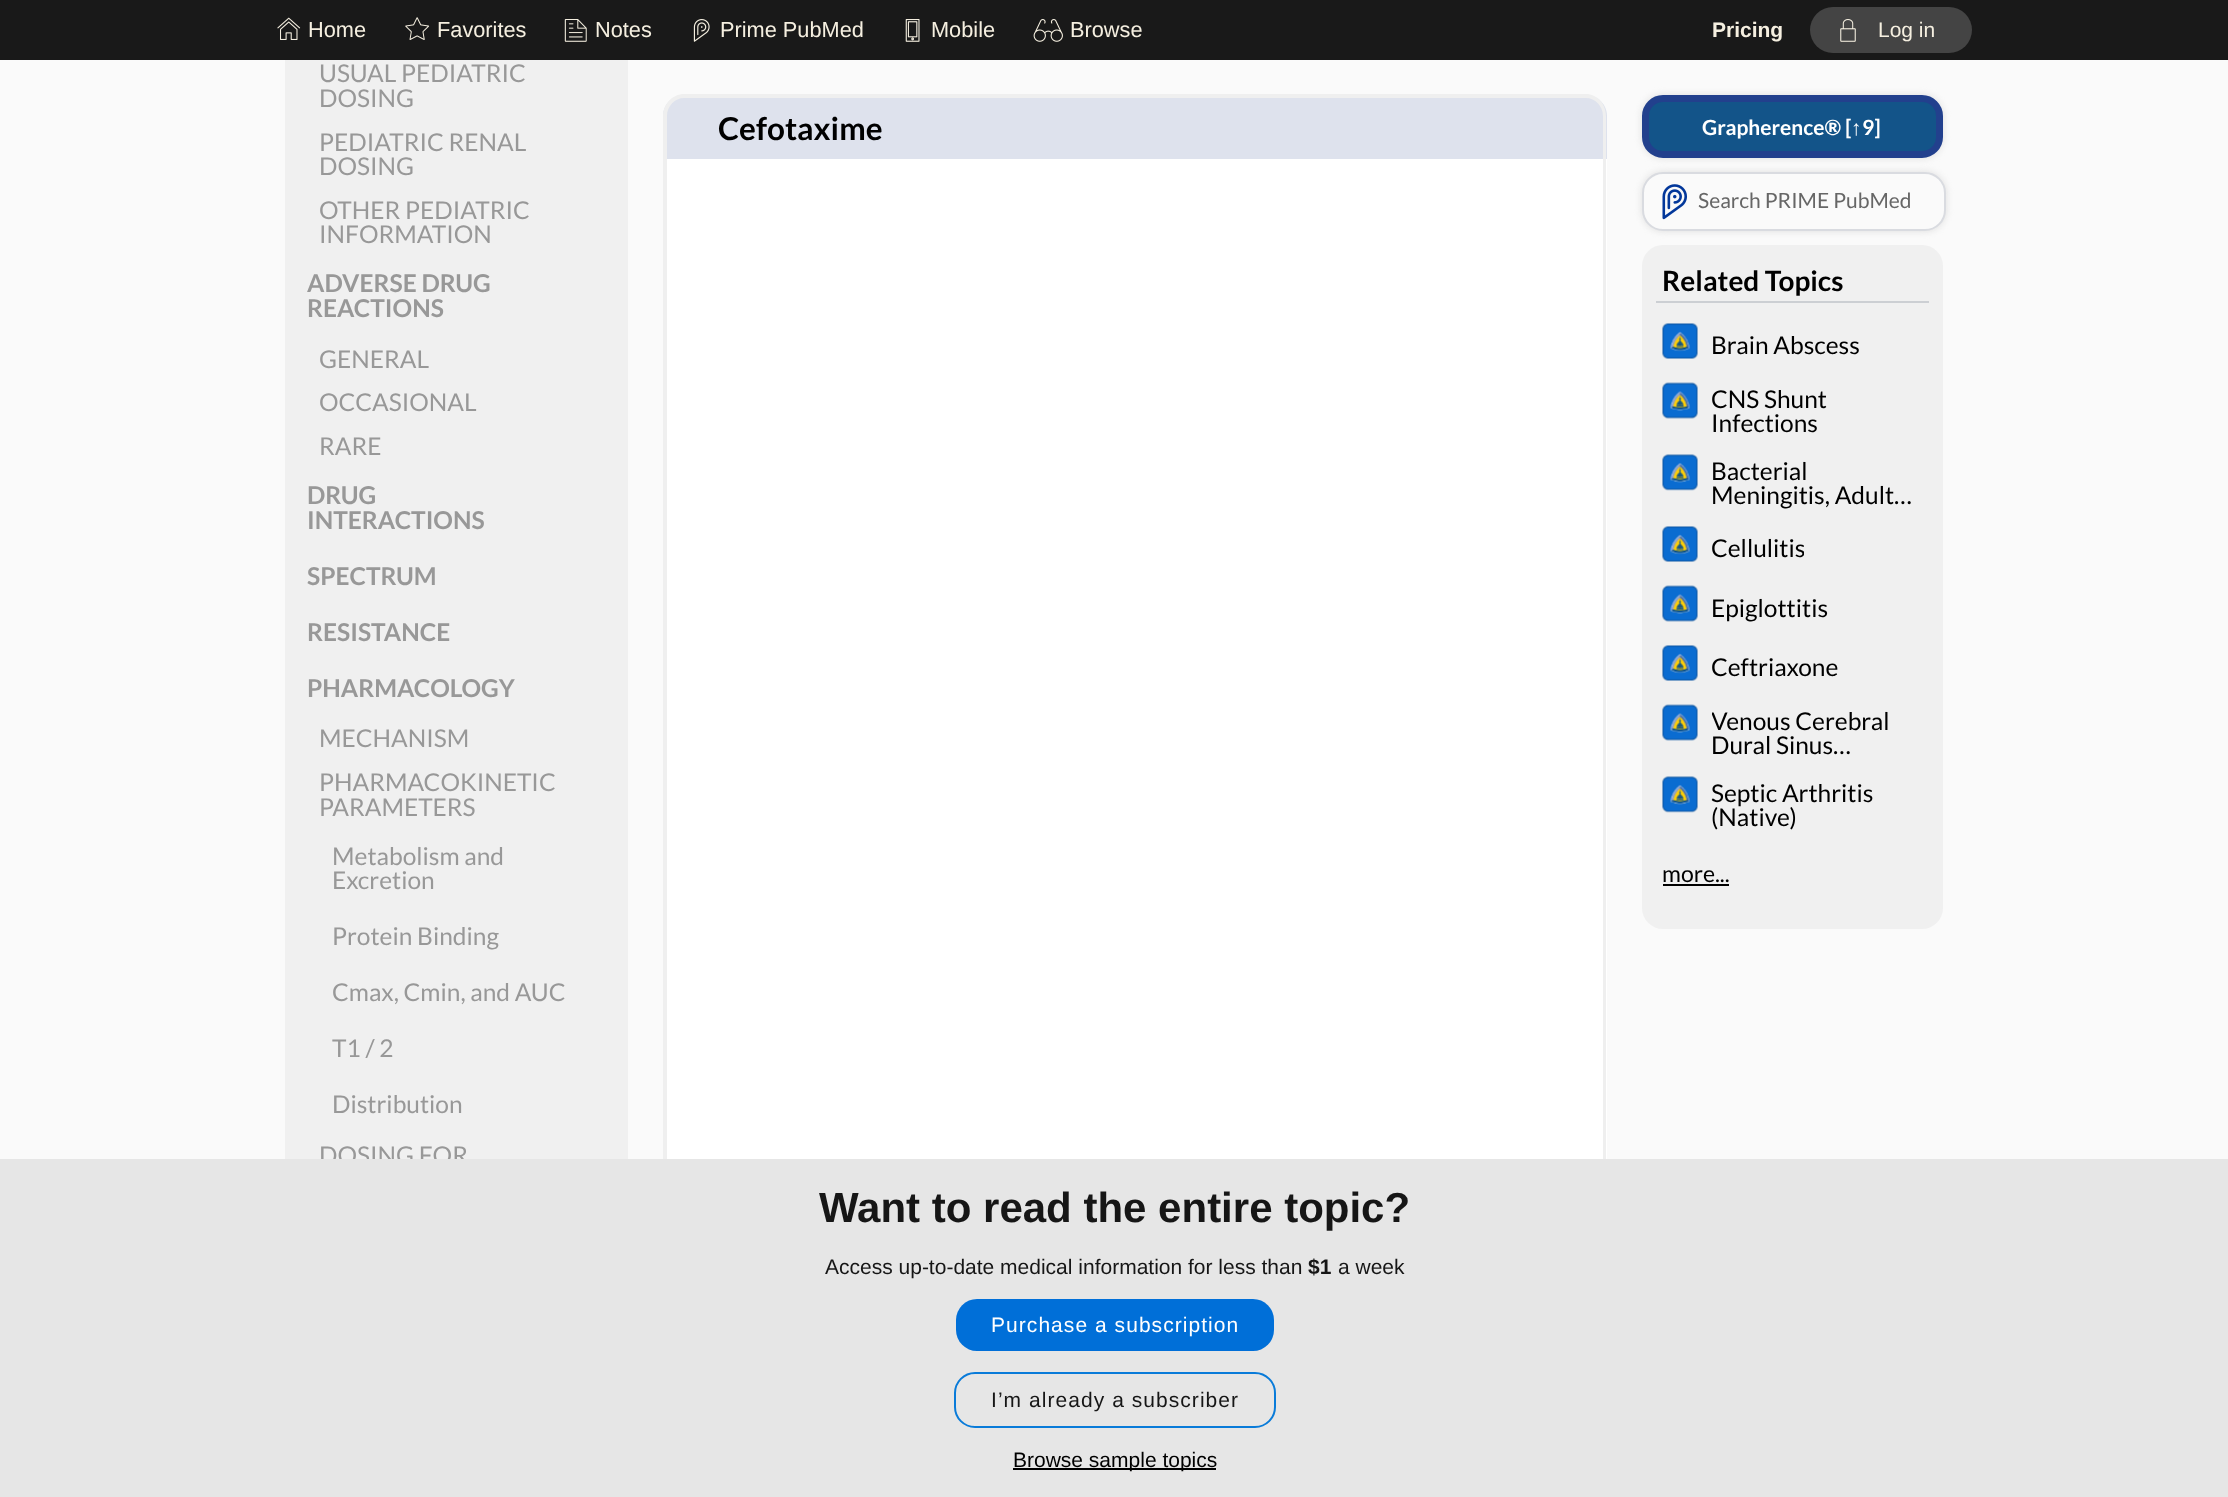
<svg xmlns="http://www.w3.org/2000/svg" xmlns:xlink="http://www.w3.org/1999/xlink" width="2228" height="1497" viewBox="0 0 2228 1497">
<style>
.cls-1{font:21.75px Liberation Sans;fill:#f5efe0}
.cls-2{font:bold 21px Liberation Sans;fill:#f5efe0}
.cls-3{font:21px Liberation Sans;fill:#f5efe0}
.cls-4{font:24.5px Lato;fill:#989898}
.cls-5{font:bold 24.5px Lato;fill:#989898}
.cls-6{font:bold 31.5px Lato;fill:#000000}
.cls-7{font:bold 21px Lato;fill:#ffffff}
.cls-8{font:bold 21px Liberation Serif;fill:#ffffff}
.cls-9{font:21px Lato;fill:#666666}
.cls-10{font:bold 28px Lato;fill:#000000}
.cls-11{font:24.5px Lato;fill:#000000}
.cls-12{font:23px Lato;fill:#000000}
.cls-13{font:bold 42px Liberation Sans;fill:#161616}
.cls-14{font:21px Liberation Sans;fill:#161616}
.cls-15{font:bold 21px Liberation Sans;fill:#161616}
.cls-16{font:21px Liberation Sans;letter-spacing:1.05px;fill:#ffffff}
.cls-17{font:21px Liberation Sans;letter-spacing:1.05px;fill:#161616}
.cls-18{font:21px Liberation Sans;fill:#000000}
</style>
<defs>
<clipPath id="clip1"><rect x="1712" y="387" width="210" height="51"/></clipPath>
<clipPath id="clip2"><rect x="1712" y="537" width="92" height="27"/></clipPath>
<clipPath id="clip3"><rect x="1712" y="656" width="126" height="27"/></clipPath>
<clipPath id="clip4"><rect x="1712" y="709" width="210" height="51"/></clipPath>
</defs>
<rect width="100%" height="100%" fill="#fafafa"/>
<rect fill="#ffffff" x="667" y="159" width="940" height="1000"/>
<path fill="#efefef" fill-rule="evenodd" d="M663-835H1606V1489C1606 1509 1591 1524 1572 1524H698C679 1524 663 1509 663 1489ZM667-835H1603V1489C1603 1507 1589 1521 1572 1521H698C681 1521 667 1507 667 1489Z"/>
<rect fill="#191919" x="0" y="0" width="2228" height="60"/>
<image xlink:href="image0.png" x="277" y="17" width="24" height="23"/>
<image xlink:href="image1.png" x="405" y="17" width="25" height="23"/>
<image xlink:href="image2.png" x="564" y="19" width="23" height="23"/>
<image xlink:href="image3.png" x="693" y="19" width="17" height="23"/>
<image xlink:href="image4.png" x="905" y="19" width="15" height="23"/>
<image xlink:href="image5.png" x="1033" y="19" width="30" height="23"/>
<rect fill="#444444" x="1810" y="7" width="162" height="46" rx="23"/>
<image xlink:href="image6.png" x="1840" y="19" width="16" height="23"/>
<rect fill="#f0f0f0" x="285" y="60" width="343" height="1099"/>
<rect fill="#fafafa" x="663" y="60" width="943" height="84"/>
<path fill="#dee2ed" d="M684 95H1586C1597.5 95 1607 104.5 1607 116V159H663V116C663 104.5 672.5 95 684 95Z"/>
<path fill="#efefef" fill-rule="evenodd" d="M684 94H1586C1597 94 1606 104 1606 116V159H663V116C663 104 673 94 684 94ZM684 98H1586C1595 98 1603 106 1603 116V159H667V116C667 106 675 98 684 98Z"/>
<rect fill="#dddddd" filter="blur(3.5px)" x="1642" y="95" width="301" height="63" rx="21"/>
<rect fill="#135489" stroke="#22408d" stroke-width="7" x="1645.5" y="98.5" width="294" height="56" rx="17.5"/>
<rect fill="#dddddd" filter="blur(3.5px)" x="1642" y="172" width="304" height="59" rx="21"/>
<rect fill="#fafafa" stroke="#d9dbe0" stroke-width="2" x="1643" y="173" width="302" height="57" rx="20"/>
<image xlink:href="image7.png" x="1662" y="184" width="25" height="36"/>
<rect fill="#f0f0f0" x="1642" y="245" width="301" height="684" rx="21"/>
<rect fill="#cccfd3" x="1656" y="301" width="273" height="2"/>
<image xlink:href="image8.png" x="1662" y="323" width="36" height="36"/>
<image xlink:href="image9.png" x="1662" y="382" width="36" height="37"/>
<image xlink:href="image10.png" x="1662" y="454" width="36" height="37"/>
<image xlink:href="image11.png" x="1662" y="526" width="36" height="36"/>
<image xlink:href="image9.png" x="1662" y="585" width="36" height="37"/>
<image xlink:href="image12.png" x="1662" y="645" width="36" height="36"/>
<image xlink:href="image9.png" x="1662" y="704" width="36" height="37"/>
<image xlink:href="image10.png" x="1662" y="776" width="36" height="37"/>
<rect fill="#000000" x="1663" y="884" width="66" height="2"/>
<text class="cls-1" x="308" y="37">Home</text>
<text class="cls-1" x="437" y="37">Favorites</text>
<text class="cls-1" x="595" y="37">Notes</text>
<text class="cls-1" x="720" y="37">Prime PubMed</text>
<text class="cls-1" x="931" y="37">Mobile</text>
<text class="cls-1" x="1070" y="37">Browse</text>
<text class="cls-2" x="1712" y="37">Pricing</text>
<text class="cls-3" x="1878" y="37">Log in</text>
<text class="cls-4"><tspan x="319" y="82">USUAL PEDIATRIC</tspan><tspan x="319" y="107">DOSING</tspan><tspan x="319" y="151">PEDIATRIC RENAL</tspan><tspan x="319" y="175">DOSING</tspan><tspan x="319" y="219">OTHER PEDIATRIC</tspan><tspan x="319" y="243">INFORMATION</tspan></text>
<text class="cls-5"><tspan x="307" y="292">ADVERSE DRUG</tspan><tspan x="307" y="317">REACTIONS</tspan></text>
<text class="cls-4"><tspan x="319" y="368">GENERAL</tspan><tspan x="319" y="411">OCCASIONAL</tspan><tspan x="319" y="455">RARE</tspan></text>
<text class="cls-5"><tspan x="307" y="504">DRUG</tspan><tspan x="307" y="529">INTERACTIONS</tspan></text>
<text class="cls-5" x="307" y="585">SPECTRUM</text>
<text class="cls-5" x="307" y="641">RESISTANCE</text>
<text class="cls-5" x="307" y="697">PHARMACOLOGY</text>
<text class="cls-4"><tspan x="319" y="747">MECHANISM</tspan><tspan x="319" y="791">PHARMACOKINETIC</tspan><tspan x="319" y="816">PARAMETERS</tspan></text>
<text class="cls-4"><tspan x="332" y="865">Metabolism and</tspan><tspan x="332" y="889">Excretion</tspan></text>
<text class="cls-4" x="332" y="945">Protein Binding</text>
<text class="cls-4" x="332" y="1001">Cmax, Cmin, and AUC</text>
<text class="cls-4" x="332" y="1057">T1 / 2</text>
<text class="cls-4" x="332" y="1113">Distribution</text>
<text class="cls-4" x="319" y="1164">DOSING FOR</text>
<text class="cls-6" x="718" y="140">Cefotaxime</text>
<text class="cls-7" x="1702" y="135">Grapherence® [</text>
<text class="cls-8" x="1851" y="135">↑</text>
<text class="cls-7" x="1862" y="135">9]</text>
<text class="cls-9" x="1698" y="208">Search PRIME PubMed</text>
<text class="cls-10" x="1662" y="291">Related Topics</text>
<text class="cls-11" x="1711" y="354">Brain Abscess</text>
<g clip-path="url(#clip1)">
<text class="cls-11" x="1711" y="408">CNS Shunt</text>
</g>
<text class="cls-11"><tspan x="1711" y="432">Infections</tspan><tspan x="1711" y="480">Bacterial</tspan><tspan x="1711" y="504">Meningitis, Adult…</tspan></text>
<g clip-path="url(#clip2)">
<text class="cls-11" x="1711" y="557">Cellulitis</text>
</g>
<text class="cls-11" x="1711" y="617">Epiglottitis</text>
<g clip-path="url(#clip3)">
<text class="cls-11" x="1711" y="676">Ceftriaxone</text>
</g>
<g clip-path="url(#clip4)">
<text class="cls-11" x="1711" y="730">Venous Cerebral</text>
</g>
<text class="cls-11"><tspan x="1711" y="754">Dural Sinus…</tspan><tspan x="1711" y="802">Septic Arthritis</tspan><tspan x="1711" y="826">(Native)</tspan></text>
<text class="cls-12" x="1662" y="882">more...</text>
<rect fill="#e6e6e6" x="0" y="1159" width="2228" height="338"/>
<text class="cls-13" x="819" y="1222">Want to read the entire topic?</text>
<text class="cls-14" x="825" y="1274">Access up-to-date medical information for less than</text>
<text class="cls-15" x="1308" y="1274">$1</text>
<text class="cls-14" x="1338" y="1274">a week</text>
<rect fill="#006fd8" x="956" y="1299" width="318" height="52" rx="21"/>
<text class="cls-16" x="991" y="1332">Purchase a subscription</text>
<rect fill="none" stroke="#097bd9" stroke-width="2" x="955" y="1373" width="320" height="54" rx="20"/>
<text class="cls-17" x="991" y="1407">I’m already a subscriber</text>
<rect fill="#000000" x="1013" y="1468" width="203" height="2"/>
<text class="cls-18" x="1013" y="1467">Browse sample topics</text>
</svg>
